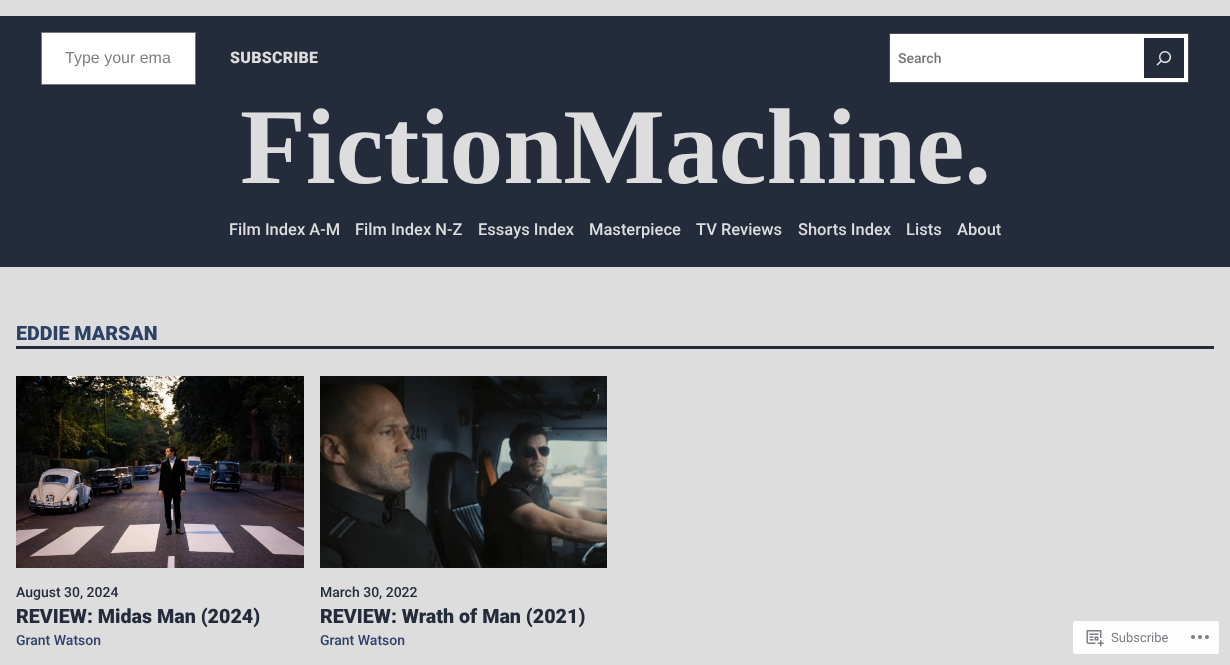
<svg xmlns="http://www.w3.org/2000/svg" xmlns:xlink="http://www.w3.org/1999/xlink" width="1230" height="665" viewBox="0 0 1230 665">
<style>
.cls-1{font:16px Liberation Sans;fill:#808080}
.cls-2{font:900 16px Roboto;letter-spacing:0.25px;fill:#dddddd}
.cls-3{font:500 14px Roboto;fill:#757575}
.cls-4{font:bold 107.75px Liberation Serif;fill:#dddddd}
.cls-5{font:500 16.5px Roboto;fill:#dddddd}
.cls-6{font:900 19.7px Roboto;fill:#2d4166}
.cls-7{font:500 14px Roboto;fill:#242c3c}
.cls-8{font:900 19.7px Roboto;fill:#242c3c}
.cls-9{font:500 14px Roboto;fill:#2d4166}
.cls-10{font:13px Roboto;fill:#7a7e84}
</style>
<rect width="100%" height="100%" fill="#dddddd"/>
<rect fill="#242c3c" x="0" y="16" width="1230" height="251"/>
<rect fill="#ffffff" stroke="#767676" x="41.5" y="32.5" width="154" height="52"/>
<rect fill="#ffffff" stroke="#4a4a4a" x="889.5" y="33.5" width="299" height="49"/>
<rect fill="#242c3c" x="1144" y="38" width="40" height="40"/>
<image xlink:href="image0.png" x="1156" y="51" width="16" height="15"/>
<rect fill="#242c3c" x="16" y="346" width="1198" height="3"/>
<image xlink:href="image1.png" x="16" y="376" width="288" height="192"/>
<image xlink:href="image2.png" x="320" y="376" width="287" height="192"/>
<rect fill="#fefefe" stroke="#dcdcde" x="1072.5" y="620.5" width="147" height="34" rx="2.5"/>
<image xlink:href="image3.png" x="1086" y="630" width="18" height="17"/>
<image xlink:href="image4.png" x="1191" y="635" width="18" height="4"/>
<text class="cls-1" x="65" y="63">Type your ema</text>
<text class="cls-2" x="230" y="63">SUBSCRIBE</text>
<text class="cls-3" x="898" y="63">Search</text>
<text class="cls-4" x="240" y="183">FictionMachine.</text>
<text class="cls-5" x="229" y="235">Film Index A-M</text>
<text class="cls-5" x="355" y="235">Film Index N-Z</text>
<text class="cls-5" x="478" y="235">Essays Index</text>
<text class="cls-5" x="589" y="235">Masterpiece</text>
<text class="cls-5" x="696" y="235">TV Reviews</text>
<text class="cls-5" x="798" y="235">Shorts Index</text>
<text class="cls-5" x="906" y="235">Lists</text>
<text class="cls-5" x="957" y="235">About</text>
<text class="cls-6" x="16" y="340">EDDIE MARSAN</text>
<text class="cls-7" x="16" y="597">August 30, 2024</text>
<text class="cls-8" x="16" y="623">REVIEW: Midas Man (2024)</text>
<text class="cls-9" x="16" y="645">Grant Watson</text>
<text class="cls-7" x="320" y="597">March 30, 2022</text>
<text class="cls-8" x="320" y="623">REVIEW: Wrath of Man (2021)</text>
<text class="cls-9" x="320" y="645">Grant Watson</text>
<text class="cls-10" x="1111" y="642">Subscribe</text>
</svg>
